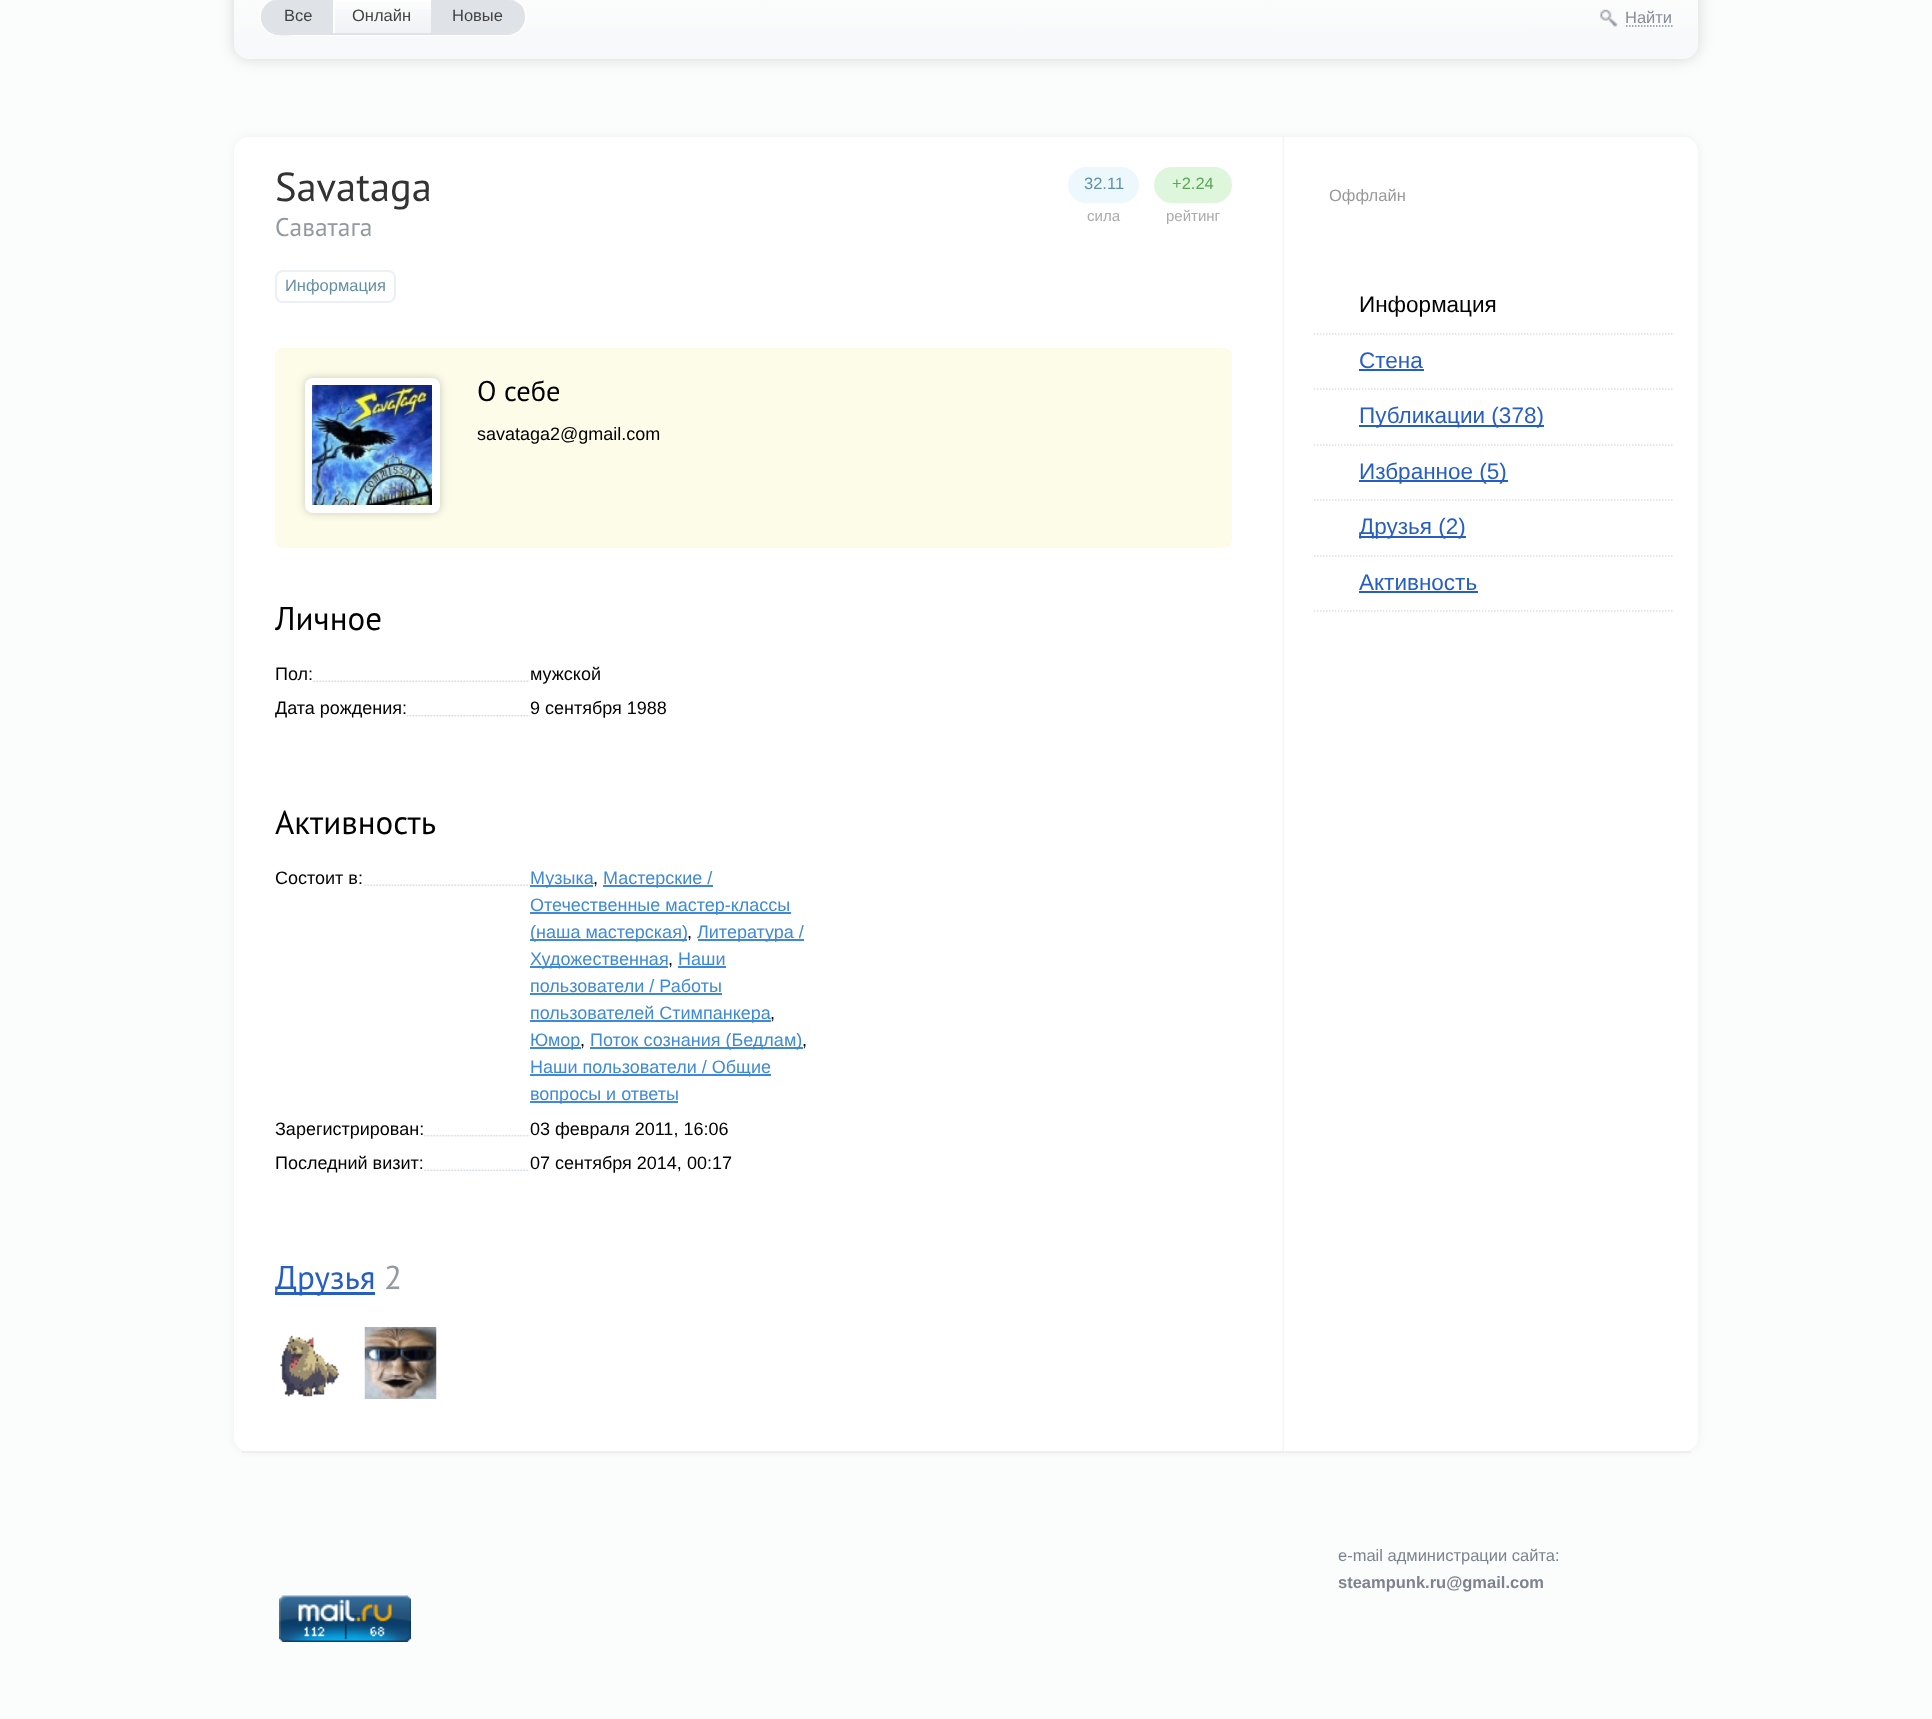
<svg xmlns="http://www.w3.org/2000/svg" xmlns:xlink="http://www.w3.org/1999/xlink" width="1932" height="1719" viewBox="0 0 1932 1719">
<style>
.cls-1{font:16.5px Liberation Sans;fill:#434343}
.cls-2{font:16.5px Liberation Sans;fill:#878e96}
.cls-3{font:40.5px PT Sans;fill:#333333}
.cls-4{font:16.5px Liberation Sans;fill:#628fa5}
.cls-5{font:15px Liberation Sans;fill:#aaaaaa}
.cls-6{font:16.5px Liberation Sans;fill:#5fa459}
.cls-7{font:25.5px PT Sans;fill:#949aa1}
.cls-8{font:28.5px PT Sans;fill:#000000}
.cls-9{font:18px Liberation Sans;fill:#000000}
.cls-10{font:33px PT Sans;fill:#000000}
.cls-11{font:18px Liberation Sans;fill:#3f8ad7}
.cls-12{font:33px PT Sans;fill:#275ec2}
.cls-13{font:33px PT Sans;fill:#949aa1}
.cls-14{font:16.5px Liberation Sans;fill:#999999}
.cls-15{font:22.5px Liberation Sans;fill:#000000}
.cls-16{font:22.5px Liberation Sans;fill:#275ec2}
.cls-17{font:16.5px Liberation Sans;fill:#7b848d}
.cls-18{font:bold 16.5px Liberation Sans;fill:#7b848d}
</style>
<defs>
<linearGradient id="g1" gradientUnits="userSpaceOnUse" x1="966" y1="-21" x2="966" y2="59"><stop offset="0" stop-color="#fdfdfd"/><stop offset="1" stop-color="#f6f8f9"/></linearGradient>
<clipPath id="clip1"><rect x="261" y="-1" width="264" height="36" rx="18"/></clipPath>
<linearGradient id="g2" gradientUnits="userSpaceOnUse" x1="296" y1="0" x2="296" y2="33"><stop offset="0" stop-color="#fbfbfc"/><stop offset="1" stop-color="#f0f2f5"/></linearGradient>
<linearGradient id="g3" gradientUnits="userSpaceOnUse" x1="382" y1="0" x2="382" y2="33"><stop offset="0" stop-color="#fbfbfc"/><stop offset="1" stop-color="#f0f2f5"/></linearGradient>
<clipPath id="clip2"><rect x="275" y="593" width="957" height="828"/></clipPath>
<clipPath id="clip3"><rect x="275" y="695" width="540" height="27"/></clipPath>
</defs>
<rect width="100%" height="100%" fill="#fbfcfc"/>
<rect fill="#000000" fill-opacity="0.15" filter="blur(7.5px)" x="234" y="-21" width="1464" height="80" rx="15"/>
<path fill="url(#g1)" d="M234-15H1698V44C1698 52.5 1691.5 59 1683 59H249C240.5 59 234 52.5 234 44Z"/>
<rect fill="none" stroke="#ffffff" stroke-width="2" x="261" y="-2" width="265" height="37" rx="18.5"/>
<path fill="#dfe3e8" d="M261 15V17C261 27 269 35 279 35H333V33H275C265 31 261 23 261 15Z"/>
<path fill="#dfe3e8" d="M279 0H333V-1H279C269-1 261 7 261 17V19C261 10 267 0 279 0Z"/>
<path fill="#dfe3e8" d="M271 33C279 37 290 35 297 35H333V-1H332V34H274Z"/>
<g clip-path="url(#clip1)">
<path fill="url(#g2)" d="M277.5 0H332V33H277.5C268.5 33 261 25.5 261 16.5C261 7.5 268.5 0 277.5 0Z"/>
</g>
<path fill="#dfe3e8" d="M278 0H332V33H287C282 33 276 34 271 32C254 25 260 0 278 0Z"/>
<rect fill="#dfe3e8" x="333" y="33" width="99" height="2"/>
<rect fill="#dfe3e8" x="431" y="0" width="1" height="35"/>
<rect fill="url(#g3)" x="335" y="9" width="96" height="24"/>
<rect fill="#ffffff" x="333" y="0" width="98" height="2"/>
<rect fill="#ffffff" x="333" y="0" width="2" height="33"/>
<path fill="#dfe3e8" d="M432 35H507C517 35 525 27 525 17V16C524 26 517 33 507 33H432Z"/>
<path fill="#dfe3e8" d="M432-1V0H507C517 0 525 8 525 17C525 8 517-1 507-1Z"/>
<path fill="#dfe3e8" d="M432 0H508C514 0 519 3 522 6C524 9 525 13 525 17C525 26 518 33 508 33H432Z"/>
<image xlink:href="image0.png" x="1600" y="9" width="18" height="18"/>
<path fill="none" stroke="#878e96" stroke-width="1.5" stroke-dasharray="1.5 1.5" d="M1626 26H1672.5"/>
<rect fill="#000000" fill-opacity="0.05" filter="blur(4px)" x="234" y="137" width="1464" height="1315" rx="15"/>
<rect fill="#ffffff" x="234" y="137" width="1464" height="1315" rx="15"/>
<image xlink:href="image1.png" x="1282" y="136" width="2" height="1315"/>
<rect fill="#eeeeee" x="242" y="1451" width="1449" height="2"/>
<rect fill="#edf8fd" x="1068" y="167" width="71" height="36" rx="18"/>
<rect fill="#def7dc" x="1154" y="167" width="78" height="36" rx="18"/>
<rect fill="none" stroke="#ebf0f4" stroke-width="2" x="276" y="271" width="119" height="31" rx="7"/>
<rect fill="#fcfce9" x="275" y="348" width="957" height="200" rx="8"/>
<rect fill="#000000" fill-opacity="0.2" filter="blur(4px)" x="305" y="378" width="135" height="135" rx="8"/>
<rect fill="#ffffff" x="305" y="378" width="135" height="135" rx="8"/>
<image xlink:href="image2.png" x="312" y="385" width="120" height="120"/>
<image xlink:href="image3.png" x="274" y="680" width="256" height="2"/>
<rect fill="#ffffff" x="275" y="680" width="37" height="2"/>
<image xlink:href="image4.png" x="274" y="715" width="256" height="2"/>
<rect fill="#ffffff" x="275" y="715" width="132" height="2"/>
<image xlink:href="image3.png" x="274" y="884" width="256" height="2"/>
<rect fill="#ffffff" x="275" y="884" width="88" height="2"/>
<rect fill="#3f8ad7" x="530" y="885" width="63" height="2"/>
<rect fill="#3f8ad7" x="603" y="885" width="110" height="2"/>
<rect fill="#3f8ad7" x="530" y="912" width="261" height="2"/>
<rect fill="#3f8ad7" x="530" y="939" width="157" height="2"/>
<rect fill="#3f8ad7" x="698" y="939" width="106" height="2"/>
<rect fill="#3f8ad7" x="530" y="966" width="138" height="2"/>
<rect fill="#3f8ad7" x="678" y="966" width="48" height="2"/>
<rect fill="#3f8ad7" x="530" y="993" width="192" height="2"/>
<rect fill="#3f8ad7" x="530" y="1020" width="241" height="2"/>
<rect fill="#3f8ad7" x="530" y="1047" width="51" height="2"/>
<rect fill="#3f8ad7" x="590" y="1047" width="213" height="2"/>
<rect fill="#3f8ad7" x="530" y="1074" width="241" height="2"/>
<rect fill="#3f8ad7" x="530" y="1101" width="148" height="2"/>
<image xlink:href="image5.png" x="274" y="1135" width="256" height="2"/>
<rect fill="#ffffff" x="275" y="1135" width="148" height="2"/>
<image xlink:href="image3.png" x="274" y="1169" width="256" height="2"/>
<rect fill="#ffffff" x="275" y="1169" width="148" height="2"/>
<rect fill="#275ec2" x="275" y="1292" width="100" height="3"/>
<image xlink:href="image6.png" x="280" y="1335" width="60" height="62"/>
<image xlink:href="image7.png" x="364" y="1327" width="73" height="72"/>
<path fill="none" stroke="#dce1e6" stroke-width="1.5" stroke-dasharray="1.5 1.5" d="M1314 334H1674"/>
<path fill="none" stroke="#dce1e6" stroke-width="1.5" stroke-dasharray="1.5 1.5" d="M1314 389H1674"/>
<rect fill="#275ec2" x="1359" y="369" width="65" height="2"/>
<path fill="none" stroke="#dce1e6" stroke-width="1.5" stroke-dasharray="1.5 1.5" d="M1314 445H1674"/>
<rect fill="#275ec2" x="1359" y="425" width="185" height="2"/>
<path fill="none" stroke="#dce1e6" stroke-width="1.5" stroke-dasharray="1.5 1.5" d="M1314 500H1674"/>
<rect fill="#275ec2" x="1359" y="480" width="149" height="2"/>
<path fill="none" stroke="#dce1e6" stroke-width="1.5" stroke-dasharray="1.5 1.5" d="M1314 556H1674"/>
<rect fill="#275ec2" x="1359" y="536" width="107" height="2"/>
<path fill="none" stroke="#dce1e6" stroke-width="1.5" stroke-dasharray="1.5 1.5" d="M1314 611H1674"/>
<rect fill="#275ec2" x="1359" y="591" width="119" height="2"/>
<image xlink:href="image8.png" x="279" y="1595" width="132" height="47"/>
<text class="cls-1" x="284" y="21">Все</text>
<text class="cls-1" x="352" y="21">Онлайн</text>
<text class="cls-1" x="452" y="21">Новые</text>
<text class="cls-2" x="1625" y="23">Найти</text>
<text class="cls-3" x="275" y="201">Savataga</text>
<text class="cls-4" x="1084" y="189">32.11</text>
<text class="cls-5" x="1087" y="221">сила</text>
<text class="cls-6" x="1172" y="189">+2.24</text>
<text class="cls-5" x="1166" y="221">рейтинг</text>
<text class="cls-7" x="275" y="236">Саватага</text>
<text class="cls-4" x="285" y="291">Информация</text>
<text class="cls-8" x="477" y="401">О себе</text>
<text class="cls-9" x="477" y="440">savataga2@gmail.com</text>
<g clip-path="url(#clip2)">
<text class="cls-10" x="275" y="630">Личное</text>
</g>
<text class="cls-9" x="275" y="680">Пол:</text>
<text class="cls-9" x="530" y="680">мужской</text>
<g clip-path="url(#clip3)">
<text class="cls-9" x="275" y="714">Дата рождения:</text>
</g>
<text class="cls-9" x="530" y="714">9 сентября 1988</text>
<text class="cls-10" x="275" y="834">Активность</text>
<text class="cls-9" x="275" y="884">Состоит в:</text>
<text class="cls-11" x="530" y="884">Музыка</text>
<text class="cls-9" x="593" y="884">,</text>
<text class="cls-11" x="603" y="884">Мастерские /</text>
<text class="cls-11"><tspan x="530" y="911">Отечественные мастер-классы</tspan><tspan x="530" y="938">(наша мастерская)</tspan></text>
<text class="cls-9" x="687" y="938">,</text>
<text class="cls-11" x="697" y="938">Литература /</text>
<text class="cls-11" x="530" y="965">Художественная</text>
<text class="cls-9" x="668" y="965">,</text>
<text class="cls-11" x="678" y="965">Наши</text>
<text class="cls-11"><tspan x="530" y="992">пользователи / Работы</tspan><tspan x="530" y="1019">пользователей Стимпанкера</tspan></text>
<text class="cls-9" x="770" y="1019">,</text>
<text class="cls-11" x="530" y="1046">Юмор</text>
<text class="cls-9" x="580" y="1046">,</text>
<text class="cls-11" x="590" y="1046">Поток сознания (Бедлам)</text>
<text class="cls-9" x="802" y="1046">,</text>
<text class="cls-11"><tspan x="530" y="1073">Наши пользователи / Общие</tspan><tspan x="530" y="1100">вопросы и ответы</tspan></text>
<text class="cls-9" x="275" y="1135">Зарегистрирован:</text>
<text class="cls-9" x="530" y="1135">03 февраля 2011, 16:06</text>
<text class="cls-9" x="275" y="1169">Последний визит:</text>
<text class="cls-9" x="530" y="1169">07 сентября 2014, 00:17</text>
<g clip-path="url(#clip2)">
<text class="cls-12" x="275" y="1289">Друзья</text>
</g>
<text class="cls-13" x="384" y="1289">2</text>
<text class="cls-14" x="1329" y="201">Оффлайн</text>
<text class="cls-15" x="1359" y="312">Информация</text>
<text class="cls-16" x="1359" y="368">Стена</text>
<text class="cls-16" x="1359" y="423">Публикации (378)</text>
<text class="cls-16" x="1359" y="479">Избранное (5)</text>
<text class="cls-16" x="1359" y="534">Друзья (2)</text>
<text class="cls-16" x="1359" y="590">Активность</text>
<text class="cls-17" x="1338" y="1561">e-mail администрации сайта:</text>
<text class="cls-18" x="1338" y="1588">steampunk.ru@gmail.com</text>
</svg>
